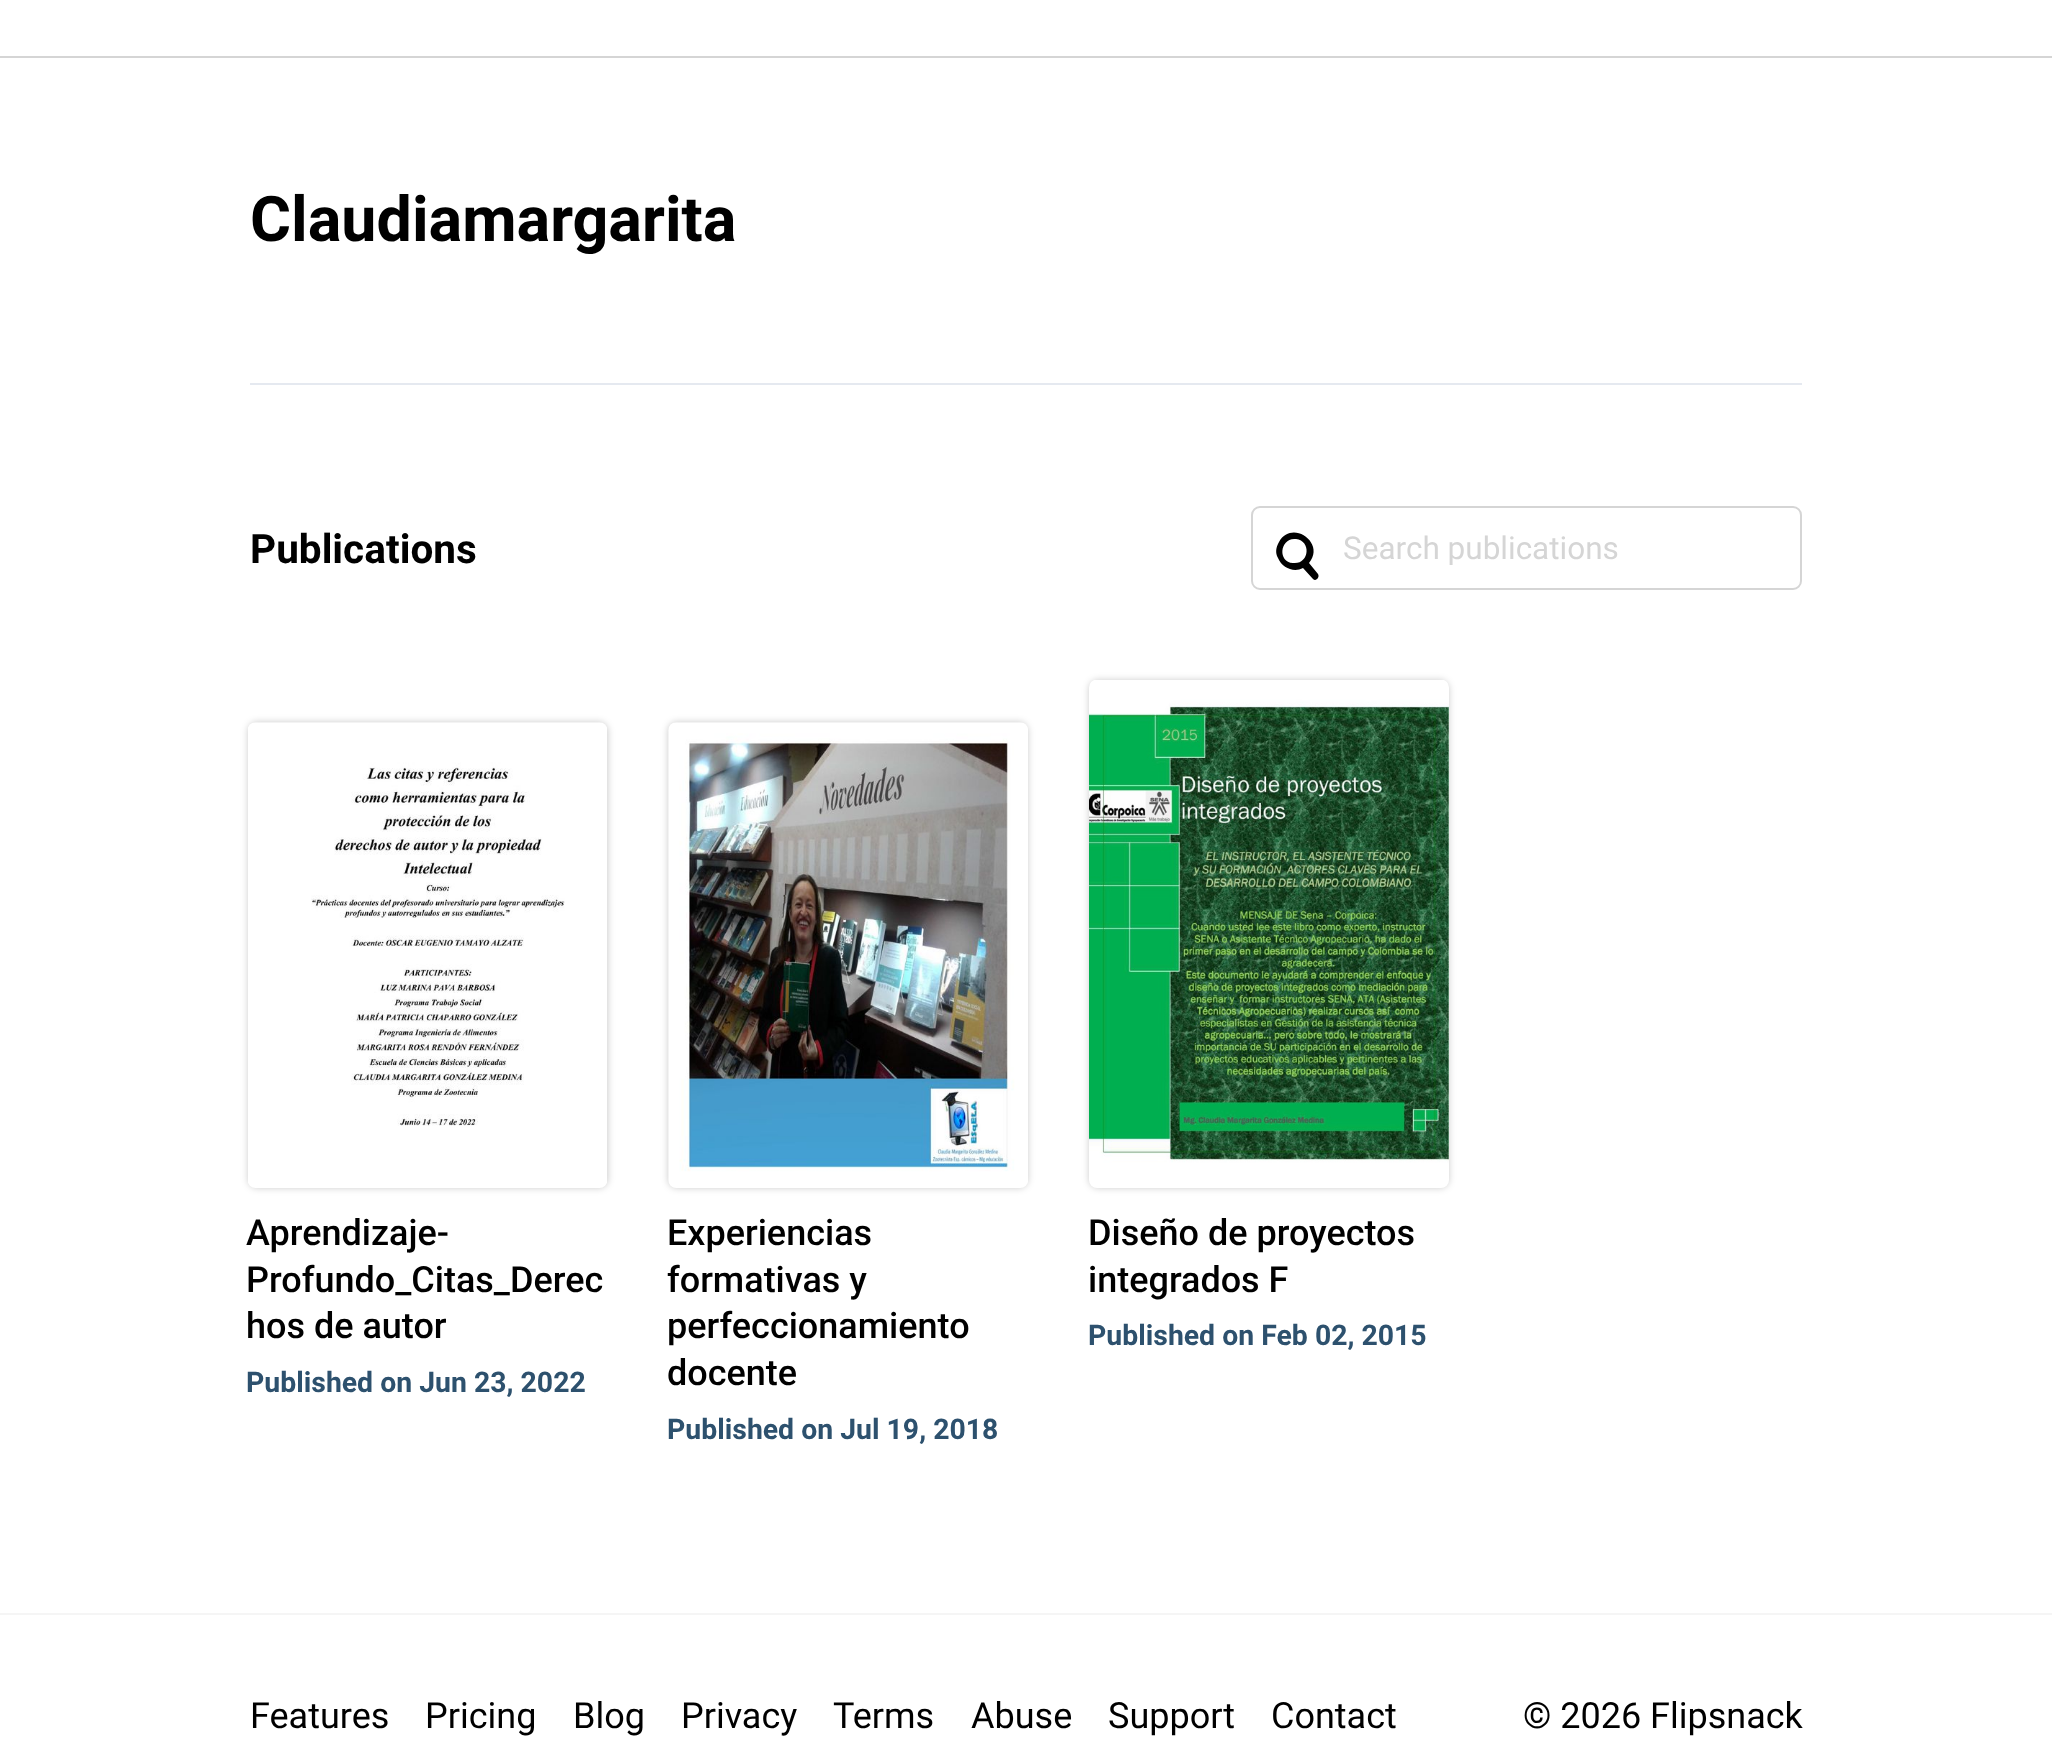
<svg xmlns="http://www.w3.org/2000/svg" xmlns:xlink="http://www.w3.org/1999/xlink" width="2052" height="1760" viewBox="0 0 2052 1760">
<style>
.cls-1{font:bold 62.75px Roboto;fill:#000000}
.cls-2{font:bold 40.5px Roboto;fill:#000000}
.cls-3{font:31.5px Roboto;fill:#d5d5d5}
.cls-4{font:500 36px Roboto;fill:#000000}
.cls-5{font:bold 28.4px Roboto;fill:#2d516e}
.cls-6{font:36px Roboto;fill:#000000}
</style>
<defs>
<clipPath id="clip1"><rect x="1343" y="529" width="394" height="36"/></clipPath>
</defs>
<rect width="100%" height="100%" fill="#ffffff"/>
<rect fill="#d5d5d5" x="0" y="56" width="2052" height="2"/>
<rect fill="#e5e9f0" x="250" y="383" width="1552" height="2"/>
<path fill="#000000" d="M1318 574L1309 563C1326 543 1292 519 1279 542C1276 547 1275 553 1278 558C1282 568 1294 573 1303 568L1313 579C1316 582 1320 577 1318 574ZM1293 563C1277 562 1280 537 1296 539C1312 541 1309 565 1293 563Z"/>
<rect fill="none" stroke="#d5d5d5" stroke-width="2" x="1252" y="507" width="549" height="82" rx="8"/>
<rect fill="#000000" fill-opacity="0.2" filter="blur(3.5px)" x="248" y="722" width="360" height="466" rx="9"/>
<image xlink:href="image0.png" x="248" y="722" width="359" height="466"/>
<rect fill="#000000" fill-opacity="0.2" filter="blur(3.5px)" x="668" y="722" width="360" height="466" rx="9"/>
<image xlink:href="image1.png" x="668" y="722" width="360" height="466"/>
<rect fill="#000000" fill-opacity="0.2" filter="blur(3.5px)" x="1089" y="680" width="360" height="508" rx="9"/>
<image xlink:href="image2.png" x="1089" y="680" width="360" height="508"/>
<rect fill="#f5f5f5" x="0" y="1613" width="2052" height="2"/>
<text class="cls-1" x="250" y="241">Claudiamargarita</text>
<text class="cls-2" x="250" y="563">Publications</text>
<g clip-path="url(#clip1)">
<text class="cls-3" x="1343" y="559">Search publications</text>
</g>
<text class="cls-4"><tspan x="246" y="1245">Aprendizaje-</tspan><tspan x="246" y="1292">Profundo_Citas_Derec</tspan><tspan x="246" y="1338">hos de autor</tspan></text>
<text class="cls-5" x="246" y="1392">Published on Jun 23, 2022</text>
<text class="cls-4"><tspan x="667" y="1245">Experiencias</tspan><tspan x="667" y="1292">formativas y</tspan><tspan x="667" y="1338">perfeccionamiento</tspan><tspan x="667" y="1385">docente</tspan></text>
<text class="cls-5" x="667" y="1439">Published on Jul 19, 2018</text>
<text class="cls-4"><tspan x="1088" y="1245">Diseño de proyectos</tspan><tspan x="1088" y="1292">integrados F</tspan></text>
<text class="cls-5" x="1088" y="1345">Published on Feb 02, 2015</text>
<text class="cls-6" x="250" y="1728">Features</text>
<text class="cls-6" x="425" y="1728">Pricing</text>
<text class="cls-6" x="573" y="1728">Blog</text>
<text class="cls-6" x="681" y="1728">Privacy</text>
<text class="cls-6" x="833" y="1728">Terms</text>
<text class="cls-6" x="971" y="1728">Abuse</text>
<text class="cls-6" x="1108" y="1728">Support</text>
<text class="cls-6" x="1271" y="1728">Contact</text>
<text class="cls-6" x="1523" y="1728">© 2026 Flipsnack</text>
</svg>
